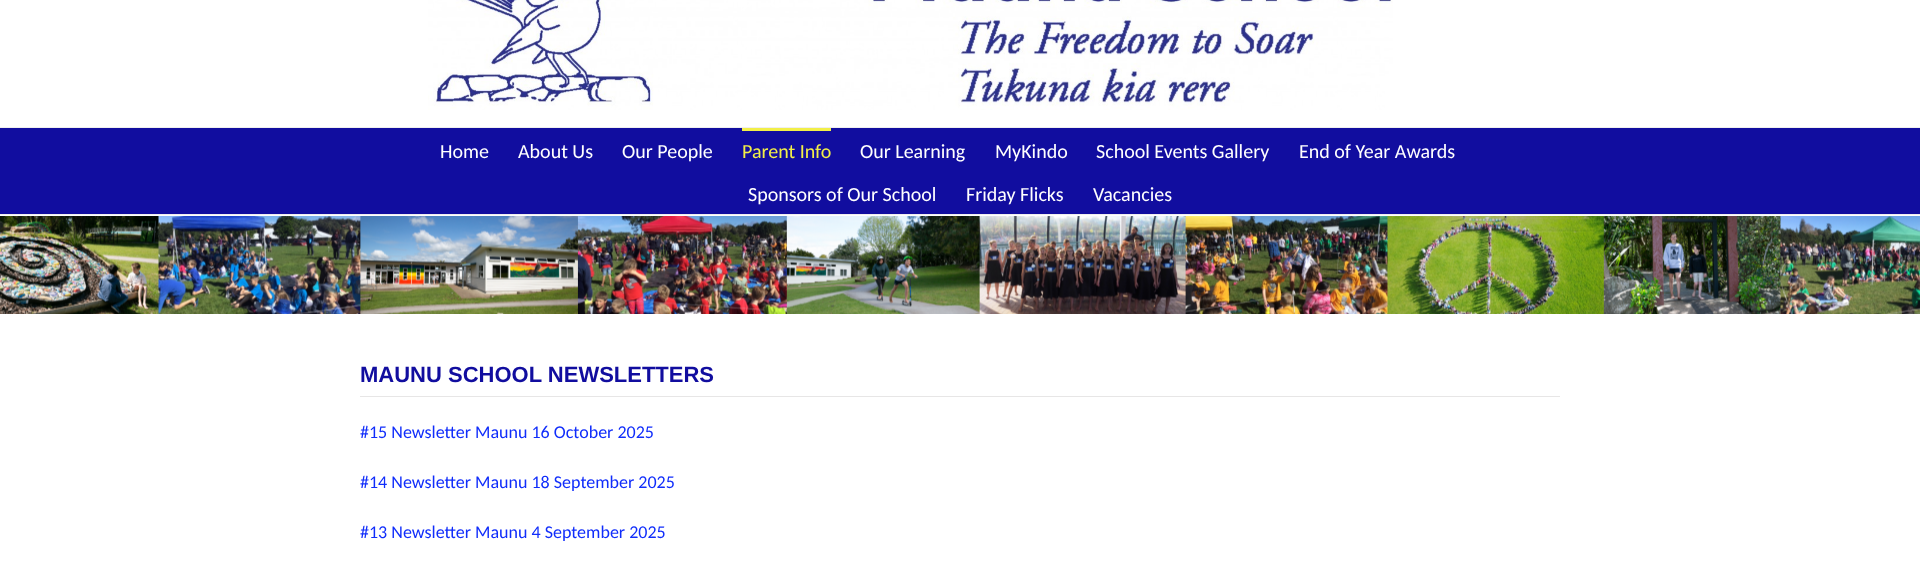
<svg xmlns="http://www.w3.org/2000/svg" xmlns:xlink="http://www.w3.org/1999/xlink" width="1920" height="562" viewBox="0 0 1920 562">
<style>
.cls-1{font:20px Carlito;fill:#ffffff}
.cls-2{font:20px Carlito;fill:#f2ef48}
.cls-3{font:bold 22px Liberation Sans;fill:#110d9f}
.cls-4{font:18px Carlito;fill:#102dfb}
</style>
<rect width="100%" height="100%" fill="#ffffff"/>
<rect fill="#efefef" x="0" y="127" width="1920" height="1"/>
<image xlink:href="image0.png" x="428" y="0" width="965" height="110"/>
<rect fill="#110d9f" x="0" y="128" width="1920" height="86"/>
<rect fill="#efefef" x="0" y="214" width="1920" height="1"/>
<rect fill="#f2ef48" x="742" y="128" width="89" height="3"/>
<image xlink:href="image1.png" x="0" y="216" width="1920" height="98"/>
<rect fill="#e7e6e6" x="360" y="396" width="1200" height="1"/>
<text class="cls-1" x="440" y="158">Home</text>
<text class="cls-1" x="518" y="158">About Us</text>
<text class="cls-1" x="622" y="158">Our People</text>
<text class="cls-2" x="742" y="158">Parent Info</text>
<text class="cls-1" x="860" y="158">Our Learning</text>
<text class="cls-1" x="995" y="158">MyKindo</text>
<text class="cls-1" x="1096" y="158">School Events Gallery</text>
<text class="cls-1" x="1299" y="158">End of Year Awards</text>
<text class="cls-1" x="748" y="201">Sponsors of Our School</text>
<text class="cls-1" x="966" y="201">Friday Flicks</text>
<text class="cls-1" x="1093" y="201">Vacancies</text>
<text class="cls-3" x="360" y="382">MAUNU SCHOOL NEWSLETTERS</text>
<text class="cls-4" x="360" y="438">#15 Newsletter Maunu 16 October 2025</text>
<text class="cls-4" x="360" y="488">#14 Newsletter Maunu 18 September 2025</text>
<text class="cls-4" x="360" y="538">#13 Newsletter Maunu 4 September 2025</text>
</svg>
